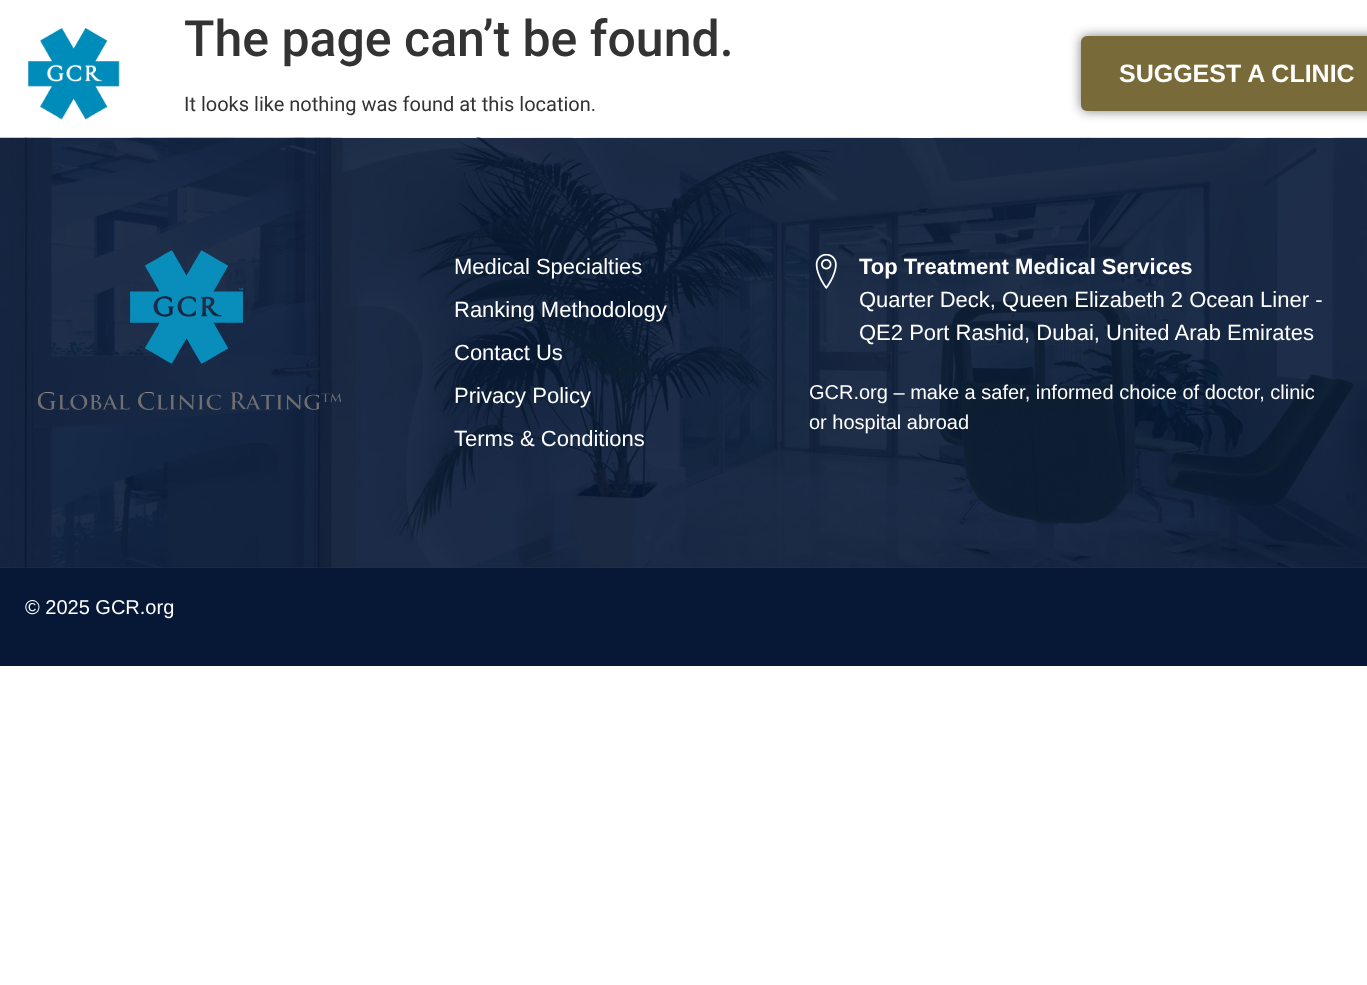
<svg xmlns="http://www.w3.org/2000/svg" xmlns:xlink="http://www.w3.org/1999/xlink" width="1367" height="985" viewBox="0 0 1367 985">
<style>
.cls-1{font:500 50px Roboto;fill:#333333}
.cls-2{font:20px Roboto;fill:#333333}
.cls-3{font:bold 25px Liberation Sans;fill:#ffffff}
.cls-4{font:22px Liberation Sans;fill:#ffffff}
.cls-5{font:bold 22px Liberation Sans;fill:#ffffff}
.cls-6{font:20px Liberation Sans;fill:#ffffff}
</style>
<rect width="100%" height="100%" fill="#ffffff"/>
<rect fill="#202f4a" x="0" y="567" width="1367" height="1"/>
<image xlink:href="image0.png" x="28" y="28" width="92" height="92"/>
<rect fill="#000000" fill-opacity="0.5" filter="blur(6px)" x="1081" y="36" width="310" height="75" rx="6"/>
<rect fill="#796a3a" x="1081" y="36" width="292" height="75" rx="6"/>
<image xlink:href="image1.png" x="0" y="137" width="1367" height="431"/>
<image xlink:href="image2.png" x="38" y="250" width="304" height="160"/>
<image xlink:href="image3.png" x="815" y="254" width="22" height="35"/>
<rect fill="#071836" x="0" y="568" width="1367" height="98"/>
<text class="cls-1" x="184" y="56">The page can’t be found.</text>
<text class="cls-2" x="184" y="111">It looks like nothing was found at this location.</text>
<text class="cls-3" x="1119" y="82">SUGGEST A CLINIC</text>
<text class="cls-4"><tspan x="454" y="274">Medical Specialties</tspan><tspan x="454" y="317">Ranking Methodology</tspan><tspan x="454" y="360">Contact Us</tspan><tspan x="454" y="403">Privacy Policy</tspan><tspan x="454" y="446">Terms &amp; Conditions</tspan></text>
<text class="cls-5" x="859" y="274">Top Treatment Medical Services</text>
<text class="cls-4"><tspan x="859" y="307">Quarter Deck, Queen Elizabeth 2 Ocean Liner -</tspan><tspan x="859" y="340">QE2 Port Rashid, Dubai, United Arab Emirates</tspan></text>
<text class="cls-6"><tspan x="809" y="399">GCR.org – make a safer, informed choice of doctor, clinic</tspan><tspan x="809" y="429">or hospital abroad</tspan></text>
<text class="cls-6" x="25" y="614">© 2025 GCR.org</text>
</svg>
